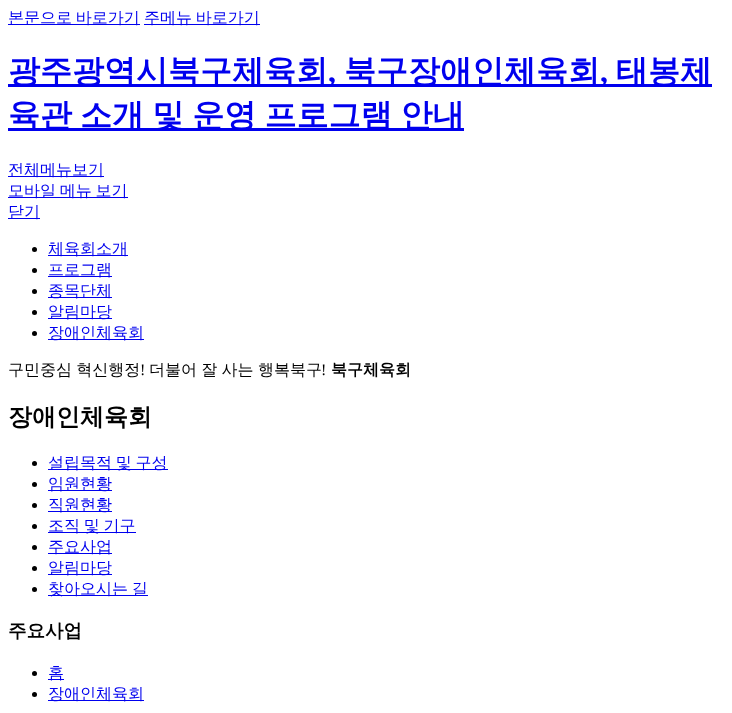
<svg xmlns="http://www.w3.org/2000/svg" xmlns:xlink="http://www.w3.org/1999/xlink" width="732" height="713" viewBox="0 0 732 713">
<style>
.cls-1{font:500 16px WenQuanYi Zen Hei;fill:#0000ee}
.cls-2{font:bold 32px WenQuanYi Zen Hei;fill:#0000ee}
.cls-3{font:bold 32px Liberation Serif;fill:#0000ee}
.cls-4{font:500 16px WenQuanYi Zen Hei;fill:#000000}
.cls-5{font:16px Liberation Serif;fill:#000000}
.cls-6{font:bold 16px WenQuanYi Zen Hei;fill:#000000}
.cls-7{font:bold 24px WenQuanYi Zen Hei;fill:#000000}
.cls-8{font:bold 18.5px WenQuanYi Zen Hei;fill:#000000}
</style>
<rect width="100%" height="100%" fill="#ffffff"/>
<rect fill="#0000ee" x="8" y="24" width="132" height="1"/>
<rect fill="#0000ee" x="144" y="24" width="116" height="1"/>
<rect fill="#0000ee" x="8" y="84" width="704" height="3"/>
<rect fill="#0000ee" x="8" y="128" width="456" height="3"/>
<rect fill="#0000ee" x="8" y="176" width="96" height="1"/>
<rect fill="#0000ee" x="8" y="197" width="120" height="1"/>
<rect fill="#0000ee" x="8" y="218" width="32" height="1"/>
<circle fill="#000000" cx="34.5" cy="249.5" r="2.5"/>
<rect fill="#0000ee" x="48" y="255" width="80" height="1"/>
<circle fill="#000000" cx="34.5" cy="270.5" r="2.5"/>
<rect fill="#0000ee" x="48" y="276" width="64" height="1"/>
<circle fill="#000000" cx="34.5" cy="291.5" r="2.5"/>
<rect fill="#0000ee" x="48" y="297" width="64" height="1"/>
<circle fill="#000000" cx="34.5" cy="312.5" r="2.5"/>
<rect fill="#0000ee" x="48" y="318" width="64" height="1"/>
<circle fill="#000000" cx="34.5" cy="333.5" r="2.5"/>
<rect fill="#0000ee" x="48" y="339" width="96" height="1"/>
<circle fill="#000000" cx="34.5" cy="463.5" r="2.5"/>
<rect fill="#0000ee" x="48" y="469" width="120" height="1"/>
<circle fill="#000000" cx="34.5" cy="484.5" r="2.5"/>
<rect fill="#0000ee" x="48" y="490" width="64" height="1"/>
<circle fill="#000000" cx="34.5" cy="505.5" r="2.5"/>
<rect fill="#0000ee" x="48" y="511" width="64" height="1"/>
<circle fill="#000000" cx="34.5" cy="526.5" r="2.5"/>
<rect fill="#0000ee" x="48" y="532" width="88" height="1"/>
<circle fill="#000000" cx="34.5" cy="547.5" r="2.5"/>
<rect fill="#0000ee" x="48" y="553" width="64" height="1"/>
<circle fill="#000000" cx="34.5" cy="568.5" r="2.5"/>
<rect fill="#0000ee" x="48" y="574" width="64" height="1"/>
<circle fill="#000000" cx="34.5" cy="589.5" r="2.5"/>
<rect fill="#0000ee" x="48" y="595" width="100" height="1"/>
<circle fill="#000000" cx="34.5" cy="673.5" r="2.5"/>
<rect fill="#0000ee" x="48" y="679" width="16" height="1"/>
<circle fill="#000000" cx="34.5" cy="694.5" r="2.5"/>
<rect fill="#0000ee" x="48" y="700" width="96" height="1"/>
<text class="cls-1" x="8" y="23" word-spacing="-1">본문으로 바로가기</text>
<text class="cls-1" x="144" y="23" word-spacing="-1">주메뉴 바로가기</text>
<text class="cls-2" x="8" y="82">광주광역시북구체육회</text>
<text class="cls-3" x="328" y="82">,</text>
<text class="cls-2" x="344" y="82">북구장애인체육회</text>
<text class="cls-3" x="600" y="82">,</text>
<text class="cls-2" x="616" y="82">태봉체</text>
<text class="cls-2" x="8" y="126" word-spacing="-1.5">육관 소개 및 운영 프로그램 안내</text>
<text class="cls-1"><tspan x="8" y="175">전체메뉴보기</tspan><tspan x="8" y="196" word-spacing="-1">모바일 메뉴 보기</tspan><tspan x="8" y="217">닫기</tspan></text>
<text class="cls-1"><tspan x="48" y="254">체육회소개</tspan><tspan x="48" y="275">프로그램</tspan><tspan x="48" y="296">종목단체</tspan><tspan x="48" y="317">알림마당</tspan><tspan x="48" y="338">장애인체육회</tspan></text>
<text class="cls-4" x="8" y="375" word-spacing="-0.5">구민중심 혁신행정</text>
<text class="cls-5" x="140" y="375">!</text>
<text class="cls-4" x="149" y="375" word-spacing="-0.5">더불어 잘 사는 행복북구</text>
<text class="cls-5" x="321" y="375">!</text>
<text class="cls-6" x="331" y="375">북구체육회</text>
<text class="cls-7" x="8" y="425">장애인체육회</text>
<text class="cls-1"><tspan x="48" y="468" word-spacing="-1">설립목적 및 구성</tspan><tspan x="48" y="489">임원현황</tspan><tspan x="48" y="510">직원현황</tspan><tspan x="48" y="531" word-spacing="-1">조직 및 기구</tspan><tspan x="48" y="552">주요사업</tspan><tspan x="48" y="573">알림마당</tspan><tspan x="48" y="594" word-spacing="-1">찾아오시는 길</tspan></text>
<text class="cls-8" x="8" y="637">주요사업</text>
<text class="cls-1"><tspan x="48" y="678">홈</tspan><tspan x="48" y="699">장애인체육회</tspan></text>
</svg>
